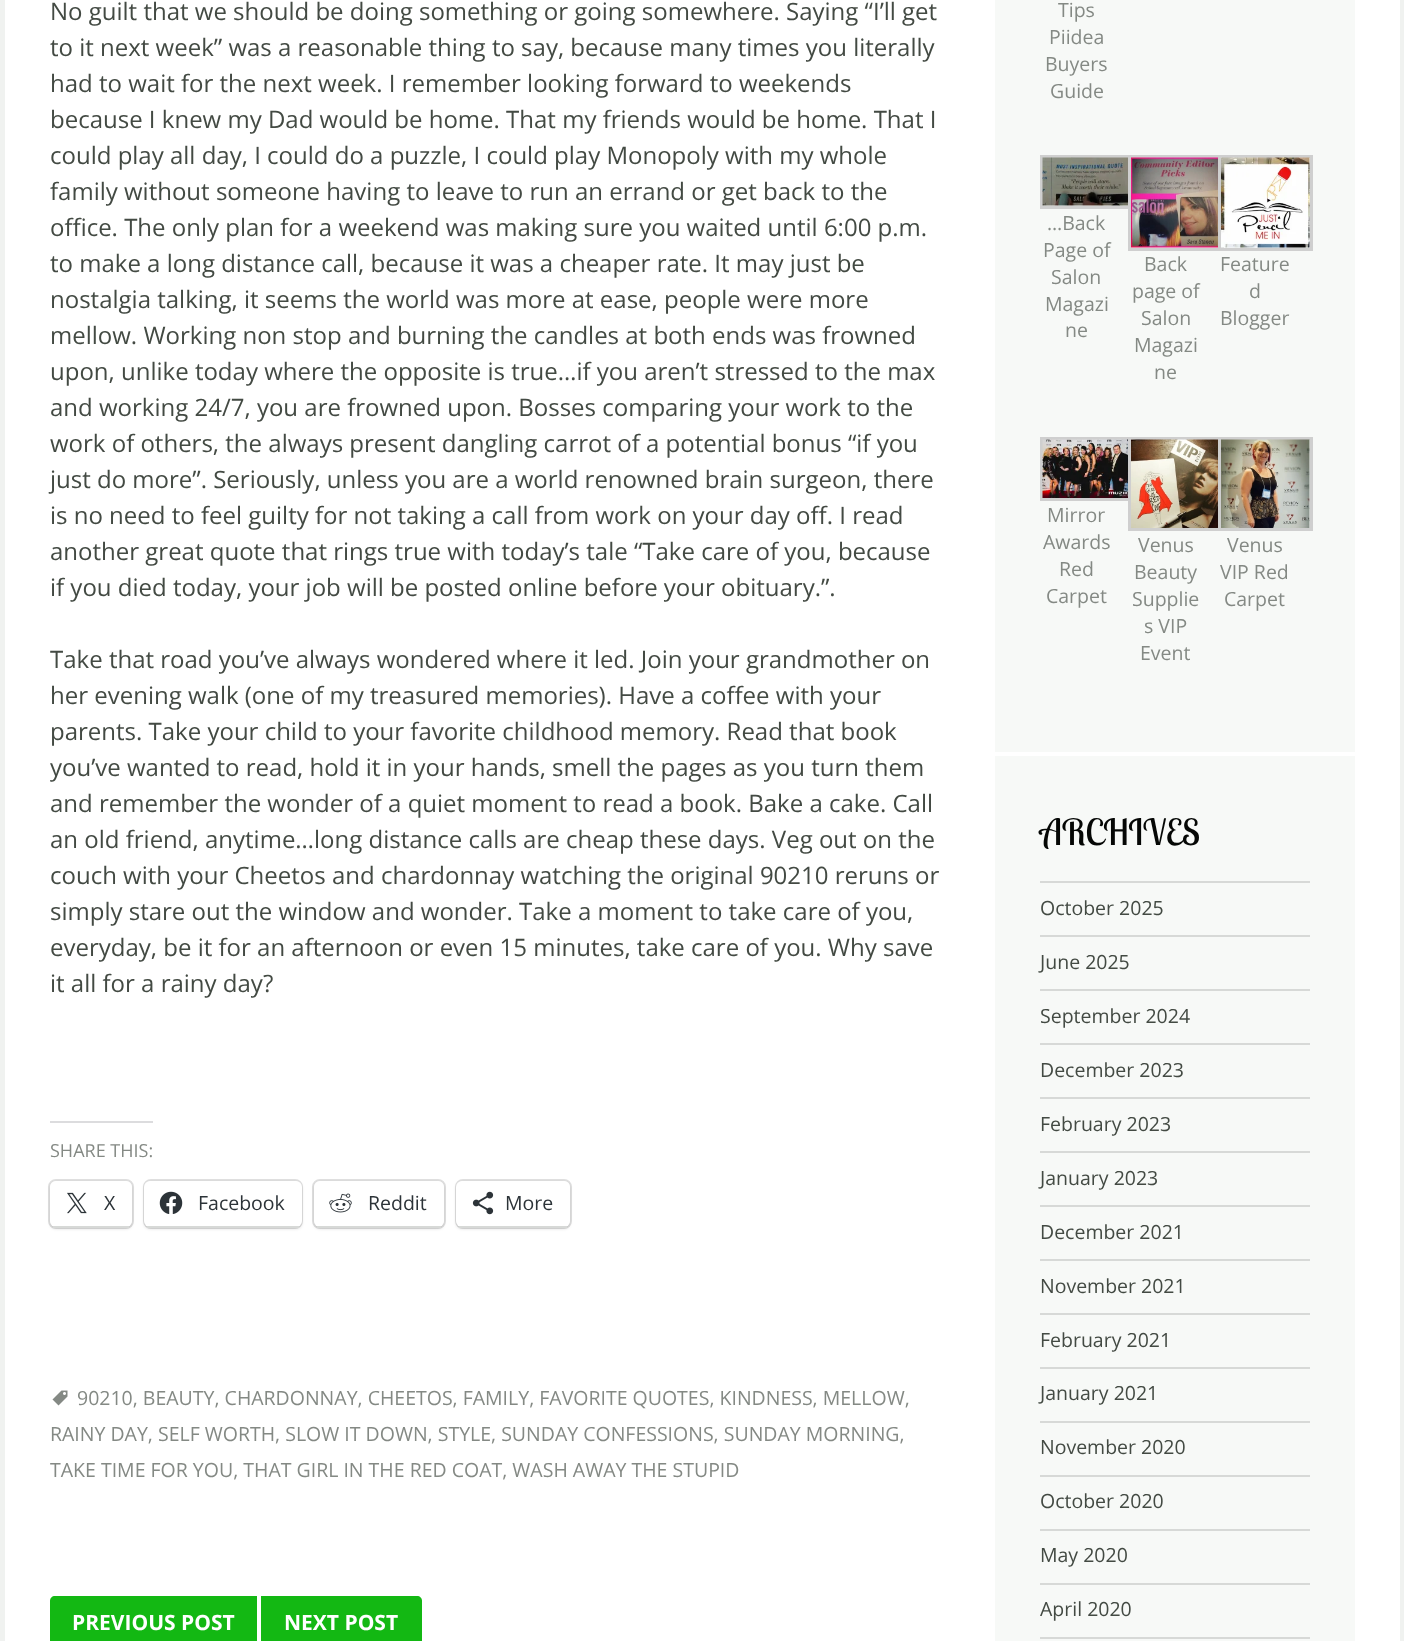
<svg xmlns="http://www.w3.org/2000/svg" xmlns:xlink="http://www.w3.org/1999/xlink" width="1404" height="1641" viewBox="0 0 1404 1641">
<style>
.cls-1{font:24px Open Sans;fill:#434a43}
.cls-2{font:18px Open Sans;fill:#848984}
.cls-3{font:19.5px Open Sans;fill:#2c3338}
.cls-4{font:19.5px Open Sans;fill:#848984}
.cls-5{font:bold 21px Open Sans;fill:#ffffff}
.cls-6{font:36px Lobster Two;fill:#050705}
.cls-7{font:19.5px Open Sans;fill:#434a43}
</style>
<rect width="100%" height="100%" fill="#f0f2f0"/>
<rect fill="#ffffff" x="5" y="0" width="1395" height="1641"/>
<rect fill="#dcdcde" x="50" y="1121" width="103" height="2"/>
<rect fill="none" stroke="#e0e0e0" stroke-width="2" x="49" y="1180" width="84" height="48" rx="7"/>
<rect fill="#000000" fill-opacity="0.12" filter="blur(1.5px)" x="50" y="1182" width="82" height="47" rx="6"/>
<rect fill="#ffffff" x="50" y="1181" width="82" height="46" rx="6"/>
<rect fill="#d7d9d7" x="53" y="1226" width="76" height="2"/>
<image xlink:href="image0.png" x="67" y="1192" width="20" height="22"/>
<rect fill="none" stroke="#e0e0e0" stroke-width="2" x="144" y="1180" width="158" height="48" rx="7"/>
<rect fill="#000000" fill-opacity="0.12" filter="blur(1.5px)" x="144" y="1182" width="158" height="47" rx="6"/>
<rect fill="#ffffff" x="144" y="1181" width="158" height="46" rx="6"/>
<rect fill="#d7d9d7" x="147" y="1226" width="152" height="2"/>
<image xlink:href="image1.png" x="159" y="1191" width="24" height="23"/>
<rect fill="none" stroke="#e0e0e0" stroke-width="2" x="313" y="1180" width="132" height="48" rx="7"/>
<rect fill="#000000" fill-opacity="0.12" filter="blur(1.5px)" x="314" y="1182" width="130" height="47" rx="6"/>
<rect fill="#ffffff" x="314" y="1181" width="130" height="46" rx="6"/>
<rect fill="#d7d9d7" x="317" y="1226" width="124" height="2"/>
<image xlink:href="image2.png" x="329" y="1193" width="23" height="20"/>
<rect fill="none" stroke="#e0e0e0" stroke-width="2" x="456" y="1180" width="115" height="48" rx="7"/>
<rect fill="#000000" fill-opacity="0.12" filter="blur(1.5px)" x="456" y="1182" width="114" height="47" rx="6"/>
<rect fill="#ffffff" x="456" y="1181" width="114" height="46" rx="6"/>
<rect fill="#d7d9d7" x="459" y="1226" width="108" height="2"/>
<image xlink:href="image3.png" x="472" y="1191" width="22" height="24"/>
<image xlink:href="image4.png" x="52" y="1390" width="16" height="16"/>
<path fill="#13b813" d="M55 1596H257V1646H55C52 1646 50 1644 50 1641V1601C50 1598 52 1596 55 1596Z"/>
<path fill="#13b813" d="M261 1596H417C420 1596 422 1598 422 1601V1641C422 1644 420 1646 417 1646H261Z"/>
<rect fill="#f7f9f7" x="995" y="0" width="360" height="752"/>
<rect fill="none" stroke="#cfcfcf" stroke-width="3" x="1041.5" y="156.5" width="91" height="51"/>
<image xlink:href="image5.png" x="1042" y="157" width="86" height="49"/>
<rect fill="none" stroke="#cfcfcf" stroke-width="3" x="1129.5" y="156.5" width="93" height="93"/>
<image xlink:href="image6.png" x="1131" y="157" width="87" height="91"/>
<rect fill="none" stroke="#cfcfcf" stroke-width="3" x="1219.5" y="156.5" width="92" height="93"/>
<image xlink:href="image7.png" x="1221" y="157" width="89" height="91"/>
<rect fill="none" stroke="#cfcfcf" stroke-width="3" x="1041.5" y="438.5" width="91" height="61"/>
<image xlink:href="image8.png" x="1042" y="439" width="86" height="59"/>
<rect fill="none" stroke="#cfcfcf" stroke-width="3" x="1129.5" y="438.5" width="93" height="91"/>
<image xlink:href="image9.png" x="1131" y="439" width="87" height="89"/>
<rect fill="none" stroke="#cfcfcf" stroke-width="3" x="1219.5" y="438.5" width="92" height="91"/>
<image xlink:href="image10.png" x="1221" y="439" width="89" height="89"/>
<rect fill="#f7f9f7" x="995" y="756" width="360" height="885"/>
<rect fill="#d7d9d7" x="1040" y="881" width="270" height="2"/>
<rect fill="#d7d9d7" x="1040" y="935" width="270" height="2"/>
<rect fill="#d7d9d7" x="1040" y="989" width="270" height="2"/>
<rect fill="#d7d9d7" x="1040" y="1043" width="270" height="2"/>
<rect fill="#d7d9d7" x="1040" y="1097" width="270" height="2"/>
<rect fill="#d7d9d7" x="1040" y="1151" width="270" height="2"/>
<rect fill="#d7d9d7" x="1040" y="1205" width="270" height="2"/>
<rect fill="#d7d9d7" x="1040" y="1259" width="270" height="2"/>
<rect fill="#d7d9d7" x="1040" y="1313" width="270" height="2"/>
<rect fill="#d7d9d7" x="1040" y="1367" width="270" height="2"/>
<rect fill="#d7d9d7" x="1040" y="1421" width="270" height="2"/>
<rect fill="#d7d9d7" x="1040" y="1475" width="270" height="2"/>
<rect fill="#d7d9d7" x="1040" y="1529" width="270" height="2"/>
<rect fill="#d7d9d7" x="1040" y="1583" width="270" height="2"/>
<rect fill="#d7d9d7" x="1040" y="1637" width="270" height="2"/>
<text class="cls-1"><tspan x="50" y="20">No guilt that we should be doing something or going somewhere. Saying “I’ll get</tspan><tspan x="50" y="56">to it next week” was a reasonable thing to say, because many times you literally</tspan><tspan x="50" y="92">had to wait for the next week. I remember looking forward to weekends</tspan><tspan x="50" y="128">because I knew my Dad would be home. That my friends would be home. That I</tspan><tspan x="50" y="164">could play all day, I could do a puzzle, I could play Monopoly with my whole</tspan><tspan x="50" y="200">family without someone having to leave to run an errand or get back to the</tspan><tspan x="50" y="236">office. The only plan for a weekend was making sure you waited until 6:00 p.m.</tspan><tspan x="50" y="272">to make a long distance call, because it was a cheaper rate. It may just be</tspan><tspan x="50" y="308">nostalgia talking, it seems the world was more at ease, people were more</tspan><tspan x="50" y="344">mellow. Working non stop and burning the candles at both ends was frowned</tspan><tspan x="50" y="380">upon, unlike today where the opposite is true…if you aren’t stressed to the max</tspan><tspan x="50" y="416">and working 24/7, you are frowned upon. Bosses comparing your work to the</tspan><tspan x="50" y="452">work of others, the always present dangling carrot of a potential bonus “if you</tspan><tspan x="50" y="488">just do more”. Seriously, unless you are a world renowned brain surgeon, there</tspan><tspan x="50" y="524">is no need to feel guilty for not taking a call from work on your day off. I read</tspan><tspan x="50" y="560">another great quote that rings true with today’s tale “Take care of you, because</tspan><tspan x="50" y="596">if you died today, your job will be posted online before your obituary.”.</tspan></text>
<text class="cls-1"><tspan x="50" y="668">Take that road you’ve always wondered where it led. Join your grandmother on</tspan><tspan x="50" y="704">her evening walk (one of my treasured memories). Have a coffee with your</tspan><tspan x="50" y="740">parents. Take your child to your favorite childhood memory. Read that book</tspan><tspan x="50" y="776">you’ve wanted to read, hold it in your hands, smell the pages as you turn them</tspan><tspan x="50" y="812">and remember the wonder of a quiet moment to read a book. Bake a cake. Call</tspan><tspan x="50" y="848">an old friend, anytime…long distance calls are cheap these days. Veg out on the</tspan><tspan x="50" y="884">couch with your Cheetos and chardonnay watching the original 90210 reruns or</tspan><tspan x="50" y="920">simply stare out the window and wonder. Take a moment to take care of you,</tspan><tspan x="50" y="956">everyday, be it for an afternoon or even 15 minutes, take care of you. Why save</tspan><tspan x="50" y="992">it all for a rainy day?</tspan></text>
<text class="cls-2" x="50" y="1157">SHARE THIS:</text>
<text class="cls-3" x="104" y="1210">X</text>
<text class="cls-3" x="198" y="1210">Facebook</text>
<text class="cls-3" x="368" y="1210">Reddit</text>
<text class="cls-3" x="505" y="1210">More</text>
<text class="cls-4" x="77" y="1405">90210, BEAUTY, CHARDONNAY, CHEETOS, FAMILY, FAVORITE QUOTES, KINDNESS, MELLOW,</text>
<text class="cls-4"><tspan x="50" y="1441">RAINY DAY, SELF WORTH, SLOW IT DOWN, STYLE, SUNDAY CONFESSIONS, SUNDAY MORNING,</tspan><tspan x="50" y="1477">TAKE TIME FOR YOU, THAT GIRL IN THE RED COAT, WASH AWAY THE STUPID</tspan></text>
<text class="cls-5" x="72" y="1630">PREVIOUS POST</text>
<text class="cls-5" x="284" y="1630">NEXT POST</text>
<text class="cls-4" x="1058" y="17">Tips</text>
<text class="cls-4" x="1049" y="44">Piidea</text>
<text class="cls-4" x="1045" y="71">Buyers</text>
<text class="cls-4" x="1050" y="98">Guide</text>
<text class="cls-4" x="1047" y="230">…Back</text>
<text class="cls-4" x="1043" y="257">Page of</text>
<text class="cls-4" x="1051" y="284">Salon</text>
<text class="cls-4" x="1045" y="311">Magazi</text>
<text class="cls-4" x="1065" y="337">ne</text>
<text class="cls-4" x="1144" y="271">Back</text>
<text class="cls-4" x="1132" y="298">page of</text>
<text class="cls-4" x="1141" y="325">Salon</text>
<text class="cls-4" x="1134" y="352">Magazi</text>
<text class="cls-4" x="1154" y="379">ne</text>
<text class="cls-4" x="1220" y="271">Feature</text>
<text class="cls-4" x="1249" y="298">d</text>
<text class="cls-4" x="1220" y="325">Blogger</text>
<text class="cls-4" x="1047" y="522">Mirror</text>
<text class="cls-4" x="1043" y="549">Awards</text>
<text class="cls-4" x="1059" y="576">Red</text>
<text class="cls-4" x="1046" y="603">Carpet</text>
<text class="cls-4" x="1138" y="552">Venus</text>
<text class="cls-4" x="1134" y="579">Beauty</text>
<text class="cls-4" x="1132" y="606">Supplie</text>
<text class="cls-4" x="1144" y="633">s VIP</text>
<text class="cls-4" x="1140" y="660">Event</text>
<text class="cls-4" x="1227" y="552">Venus</text>
<text class="cls-4" x="1220" y="579">VIP Red</text>
<text class="cls-4" x="1224" y="606">Carpet</text>
<text class="cls-6" x="1040" y="845">ARCHIVES</text>
<text class="cls-7" x="1040" y="915">October 2025</text>
<text class="cls-7" x="1040" y="969">June 2025</text>
<text class="cls-7" x="1040" y="1023">September 2024</text>
<text class="cls-7" x="1040" y="1077">December 2023</text>
<text class="cls-7" x="1040" y="1131">February 2023</text>
<text class="cls-7" x="1040" y="1185">January 2023</text>
<text class="cls-7" x="1040" y="1239">December 2021</text>
<text class="cls-7" x="1040" y="1293">November 2021</text>
<text class="cls-7" x="1040" y="1347">February 2021</text>
<text class="cls-7" x="1040" y="1400">January 2021</text>
<text class="cls-7" x="1040" y="1454">November 2020</text>
<text class="cls-7" x="1040" y="1508">October 2020</text>
<text class="cls-7" x="1040" y="1562">May 2020</text>
<text class="cls-7" x="1040" y="1616">April 2020</text>
</svg>
